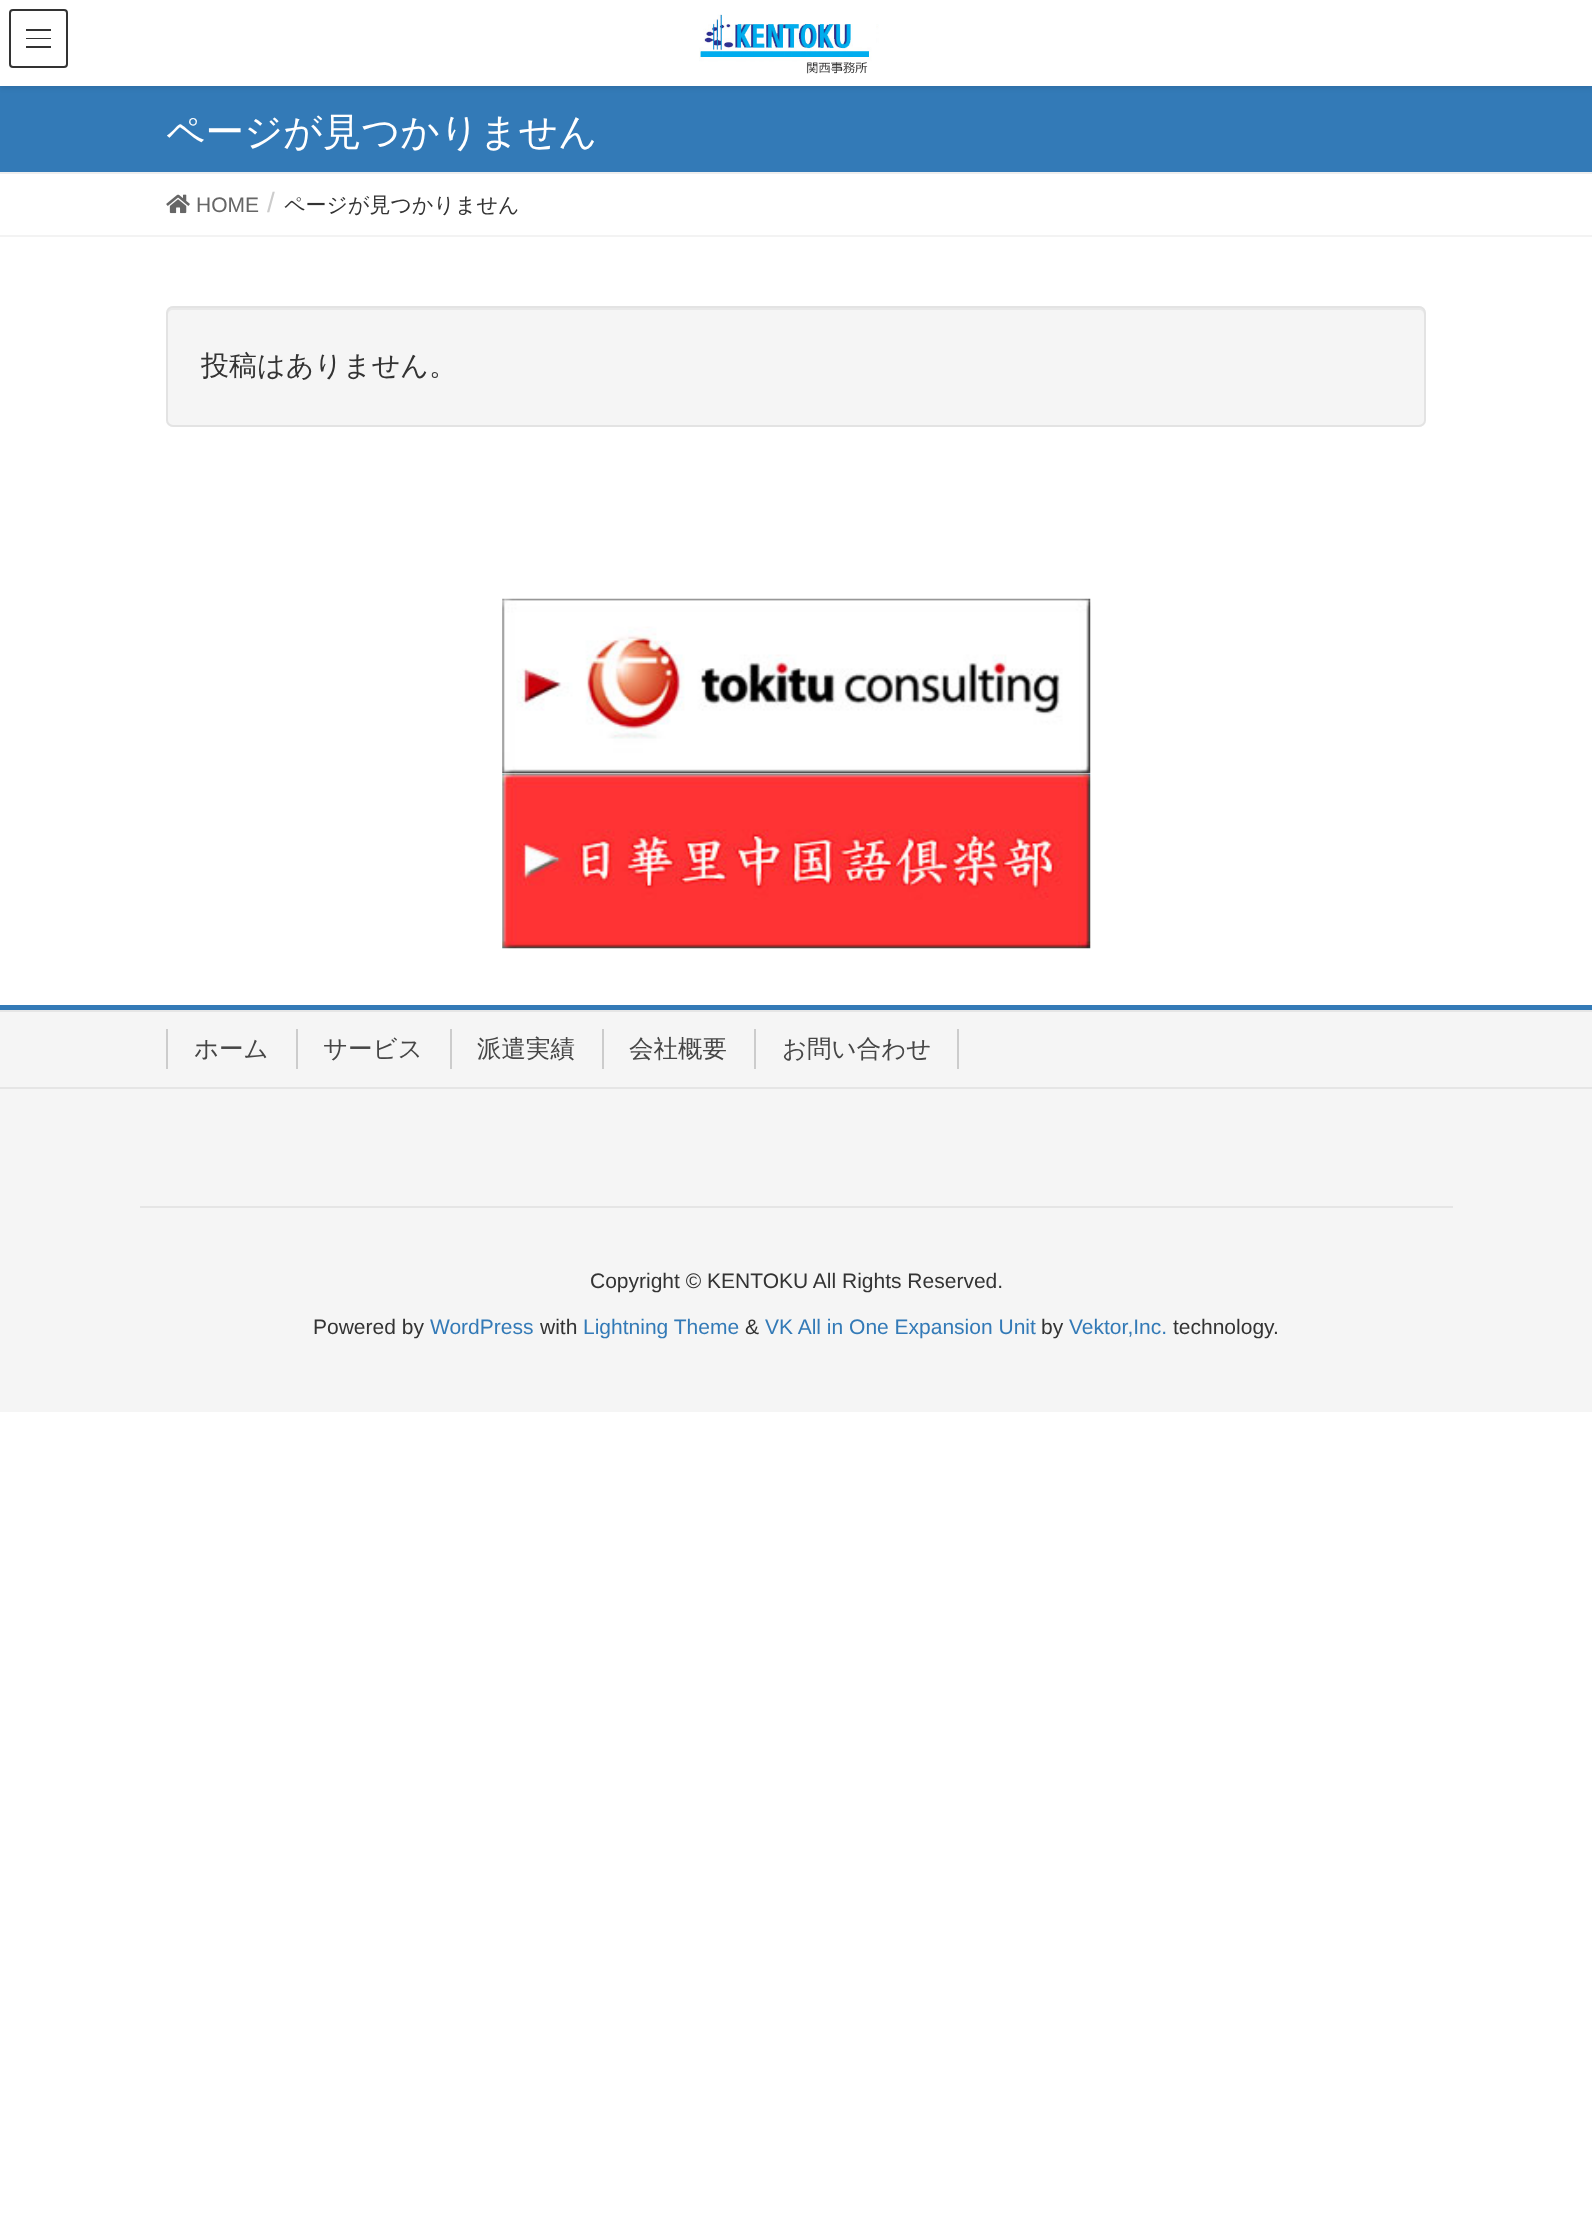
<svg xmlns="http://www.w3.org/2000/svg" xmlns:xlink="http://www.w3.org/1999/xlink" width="1592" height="2236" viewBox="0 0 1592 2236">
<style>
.cls-1{font:500 38.5px WenQuanYi Zen Hei;fill:#ffffff}
.cls-2{font:21px Liberation Sans;fill:#666666}
.cls-3{font:28px Liberation Sans;fill:#cccccc}
.cls-4{font:500 21px WenQuanYi Zen Hei;fill:#333333}
.cls-5{font:500 28px WenQuanYi Zen Hei;fill:#333333}
.cls-6{font:500 24.5px WenQuanYi Zen Hei;fill:#464646}
.cls-7{font:21px Liberation Sans;fill:#333333}
.cls-8{font:21px Liberation Sans;fill:#337ab7}
</style>
<rect width="100%" height="100%" fill="#ffffff"/>
<rect fill="#337ab7" x="0" y="86" width="1592" height="86"/>
<rect fill="#000000" fill-opacity="0.1" filter="blur(2.5px)" x="0" y="2" width="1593" height="86"/>
<rect fill="#ffffff" x="0" y="0" width="1592" height="86"/>
<image xlink:href="image0.png" x="699" y="14" width="180" height="60"/>
<rect fill="#333333" x="26" y="29" width="25" height="2"/>
<rect fill="#333333" x="26" y="38" width="25" height="1"/>
<rect fill="#333333" x="26" y="46" width="25" height="2"/>
<rect fill="none" stroke="#333333" stroke-width="2" x="10" y="10" width="57" height="57" rx="3"/>
<rect fill="#eeeeee" x="0" y="172" width="1592" height="2"/>
<rect fill="#f3f3f3" x="0" y="235" width="1592" height="2"/>
<image xlink:href="image1.png" x="166" y="194" width="24" height="20"/>
<rect fill="#f5f5f5" x="166" y="306" width="1260" height="121" rx="7"/>
<path fill="#e9e9e9" d="M173 310H1419C1422 310 1424 312 1424 315V423C1425 422 1425 421 1425 420V313C1425 310 1423 308 1420 308H173C170 308 168 310 168 313V315C168 312 170 310 173 310Z"/>
<rect fill="none" stroke="#e3e3e3" stroke-width="2" x="167" y="307" width="1258" height="119" rx="6"/>
<image xlink:href="image2.png" x="502" y="598" width="589" height="176"/>
<image xlink:href="image3.png" x="502" y="773" width="589" height="176"/>
<rect fill="#f5f5f5" x="0" y="1012" width="1592" height="400"/>
<rect fill="#337ab7" x="0" y="1005" width="1592" height="5"/>
<rect fill="#e5e5e5" x="0" y="1010" width="1592" height="2"/>
<rect fill="#e5e5e5" x="0" y="1087" width="1592" height="2"/>
<rect fill="#cccccc" x="166" y="1029" width="2" height="40"/>
<rect fill="#cccccc" x="296" y="1029" width="2" height="40"/>
<rect fill="#cccccc" x="450" y="1029" width="2" height="40"/>
<rect fill="#cccccc" x="602" y="1029" width="2" height="40"/>
<rect fill="#cccccc" x="957" y="1029" width="2" height="40"/>
<rect fill="#cccccc" x="754" y="1029" width="2" height="40"/>
<rect fill="#e5e5e5" x="140" y="1206" width="1313" height="2"/>
<text class="cls-1" x="166" y="145">ページが見つかりません</text>
<text class="cls-2" x="196" y="212">HOME</text>
<text class="cls-3" x="267" y="212">/</text>
<text class="cls-4" x="284" y="212">ページが見つかりません</text>
<text class="cls-5" x="201" y="375">投稿はありません。</text>
<text class="cls-6" x="194" y="1057">ホーム</text>
<text class="cls-6" x="323" y="1057">サービス</text>
<text class="cls-6" x="477" y="1057">派遣実績</text>
<text class="cls-6" x="629" y="1057">会社概要</text>
<text class="cls-6" x="782" y="1057">お問い合わせ</text>
<text class="cls-7" x="590" y="1288">Copyright © KENTOKU All Rights Reserved.</text>
<text class="cls-7" x="313" y="1334">Powered by</text>
<text class="cls-8" x="430" y="1334">WordPress</text>
<text class="cls-7" x="540" y="1334">with</text>
<text class="cls-8" x="583" y="1334">Lightning Theme</text>
<text class="cls-7" x="745" y="1334">&amp;</text>
<text class="cls-8" x="765" y="1334">VK All in One Expansion Unit</text>
<text class="cls-7" x="1041" y="1334">by</text>
<text class="cls-8" x="1069" y="1334">Vektor,Inc.</text>
<text class="cls-7" x="1173" y="1334">technology.</text>
</svg>
